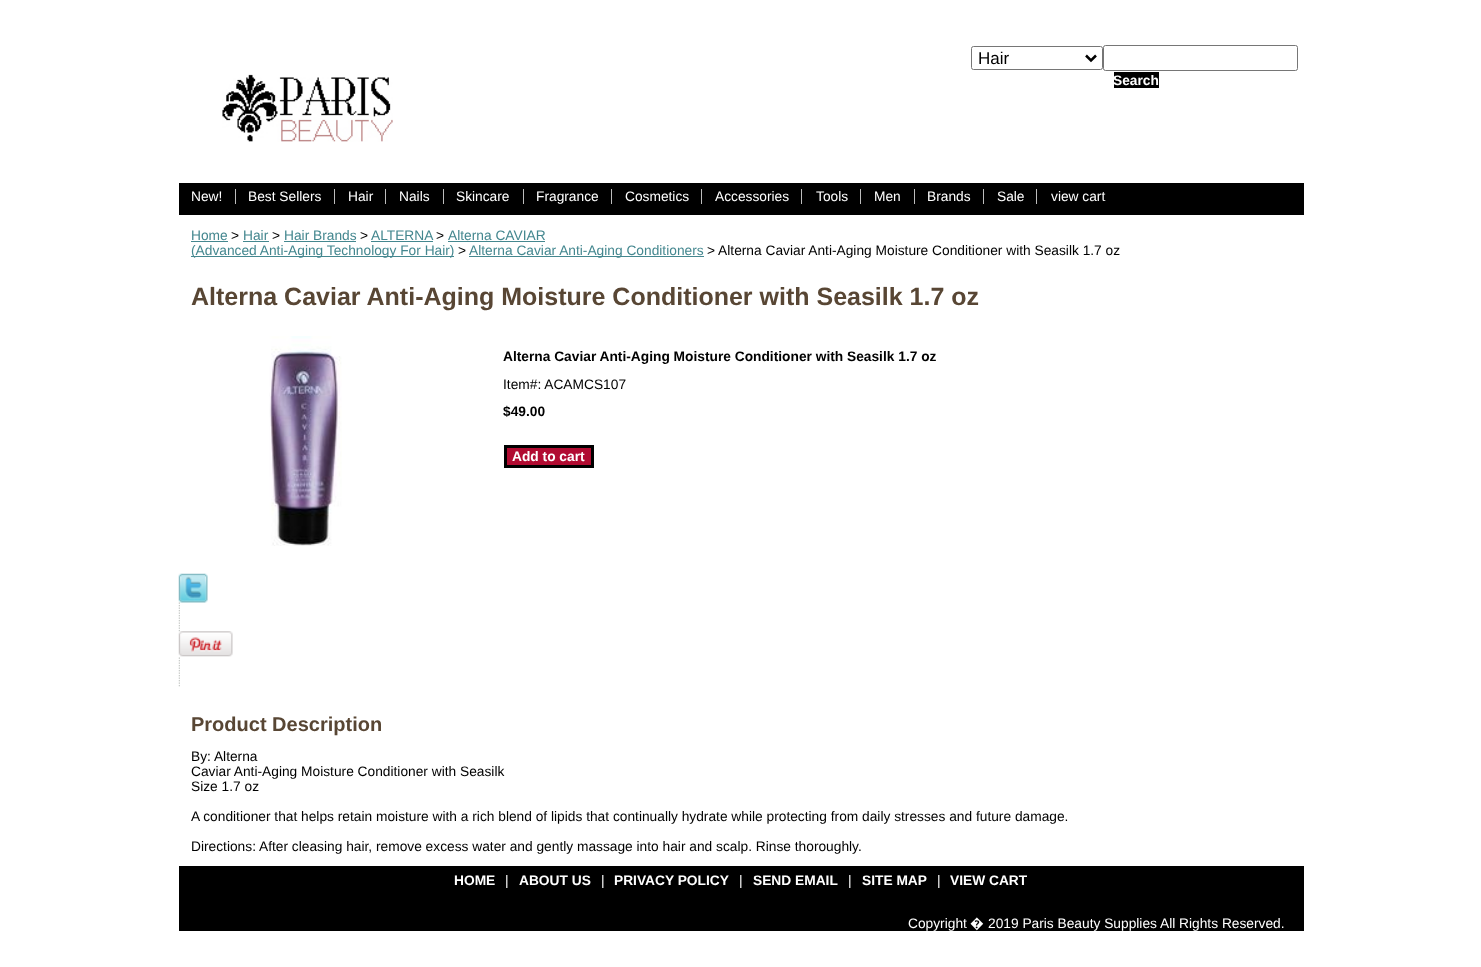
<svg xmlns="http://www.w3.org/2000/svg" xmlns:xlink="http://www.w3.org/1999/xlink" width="1481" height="967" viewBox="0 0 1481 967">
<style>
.cls-1{font:17px Liberation Sans;fill:#000000}
.cls-2{font:bold 13.75px Liberation Sans;fill:#ffffff}
.cls-3{font:13.75px Liberation Sans;fill:#ffffff}
.cls-4{font:13.75px Liberation Sans;fill:#44878f}
.cls-5{font:13.75px Liberation Sans;fill:#000000}
.cls-6{font:bold 25px Liberation Sans;fill:#584634}
.cls-7{font:bold 13.75px Liberation Sans;fill:#000000}
.cls-8{font:bold 20px Liberation Sans;fill:#584634}
.cls-9{font:13.75px Noto Sans;fill:#ffffff}
</style>
<rect width="100%" height="100%" fill="#ffffff"/>
<rect fill="none" stroke="#767676" x="971.5" y="46.5" width="131" height="23" rx="2"/>
<path fill="none" stroke="#000000" stroke-width="2.5" d="M1086 55.5L1091 60.5L1096 55.5"/>
<rect fill="none" stroke="#767676" x="1103.5" y="45.5" width="194" height="25" rx="2"/>
<rect fill="#000000" x="1114" y="72" width="45" height="16"/>
<image xlink:href="image0.png" x="222" y="74" width="171" height="68"/>
<rect fill="#000000" x="179" y="183" width="1125" height="32"/>
<rect fill="#bcbcbc" x="235" y="189" width="1" height="15"/>
<rect fill="#bcbcbc" x="334" y="189" width="1" height="15"/>
<rect fill="#bcbcbc" x="385" y="189" width="1" height="15"/>
<rect fill="#bcbcbc" x="443" y="189" width="1" height="15"/>
<rect fill="#bcbcbc" x="523" y="189" width="1" height="15"/>
<rect fill="#bcbcbc" x="611" y="189" width="1" height="15"/>
<rect fill="#bcbcbc" x="701" y="189" width="1" height="15"/>
<rect fill="#bcbcbc" x="801" y="189" width="1" height="15"/>
<rect fill="#bcbcbc" x="860" y="189" width="1" height="15"/>
<rect fill="#bcbcbc" x="914" y="189" width="1" height="15"/>
<rect fill="#bcbcbc" x="983" y="189" width="1" height="15"/>
<rect fill="#bcbcbc" x="1036" y="189" width="1" height="15"/>
<rect fill="#44878f" x="191" y="241" width="37" height="1"/>
<rect fill="#44878f" x="243" y="241" width="26" height="1"/>
<rect fill="#44878f" x="284" y="241" width="72" height="1"/>
<rect fill="#44878f" x="371" y="241" width="62" height="1"/>
<rect fill="#44878f" x="448" y="241" width="97" height="1"/>
<rect fill="#44878f" x="191" y="256" width="263" height="1"/>
<rect fill="#44878f" x="469" y="256" width="235" height="1"/>
<image xlink:href="image1.png" x="269" y="336" width="73" height="210"/>
<rect fill="#b10b31" stroke="#000000" stroke-width="3" x="505.5" y="446.5" width="87" height="20"/>
<image xlink:href="image2.png" x="178" y="573" width="30" height="30"/>
<image xlink:href="image3.png" x="178" y="602" width="2" height="30"/>
<image xlink:href="image4.png" x="178" y="631" width="55" height="26"/>
<image xlink:href="image5.png" x="178" y="657" width="2" height="30"/>
<rect fill="#000000" x="179" y="866" width="1125" height="65"/>
<text class="cls-1" x="978" y="64">Hair</text>
<text class="cls-2" x="1113" y="85">Search</text>
<text class="cls-3" x="191" y="201">New!</text>
<text class="cls-3" x="248" y="201">Best Sellers</text>
<text class="cls-3" x="348" y="201">Hair</text>
<text class="cls-3" x="399" y="201">Nails</text>
<text class="cls-3" x="456" y="201">Skincare</text>
<text class="cls-3" x="536" y="201">Fragrance</text>
<text class="cls-3" x="625" y="201">Cosmetics</text>
<text class="cls-3" x="715" y="201">Accessories</text>
<text class="cls-3" x="816" y="201">Tools</text>
<text class="cls-3" x="874" y="201">Men</text>
<text class="cls-3" x="927" y="201">Brands</text>
<text class="cls-3" x="997" y="201">Sale</text>
<text class="cls-3" x="1051" y="201">view cart</text>
<text class="cls-4" x="191" y="240">Home</text>
<text class="cls-5" x="231" y="240">&gt;</text>
<text class="cls-4" x="243" y="240">Hair</text>
<text class="cls-5" x="272" y="240">&gt;</text>
<text class="cls-4" x="284" y="240">Hair Brands</text>
<text class="cls-5" x="360" y="240">&gt;</text>
<text class="cls-4" x="371" y="240">ALTERNA</text>
<text class="cls-5" x="436" y="240">&gt;</text>
<text class="cls-4" x="448" y="240">Alterna CAVIAR</text>
<text class="cls-4" x="191" y="255">(Advanced Anti-Aging Technology For Hair)</text>
<text class="cls-5" x="458" y="255">&gt;</text>
<text class="cls-4" x="469" y="255">Alterna Caviar Anti-Aging Conditioners</text>
<text class="cls-5" x="707" y="255">&gt; Alterna Caviar Anti-Aging Moisture Conditioner with Seasilk 1.7 oz</text>
<text class="cls-6" x="191" y="305">Alterna Caviar Anti-Aging Moisture Conditioner with Seasilk 1.7 oz</text>
<text class="cls-7" x="503" y="361">Alterna Caviar Anti-Aging Moisture Conditioner with Seasilk 1.7 oz</text>
<text class="cls-5" x="503" y="389">Item#: ACAMCS107</text>
<text class="cls-7" x="503" y="416">$49.00</text>
<text class="cls-2" x="512" y="461">Add to cart</text>
<text class="cls-8" x="191" y="731">Product Description</text>
<text class="cls-5"><tspan x="191" y="761">By: Alterna</tspan><tspan x="191" y="776">Caviar Anti-Aging Moisture Conditioner with Seasilk</tspan><tspan x="191" y="791">Size 1.7 oz</tspan></text>
<text class="cls-5" x="191" y="821">A conditioner that helps retain moisture with a rich blend of lipids that continually hydrate while protecting from daily stresses and future damage.</text>
<text class="cls-5" x="191" y="851">Directions: After cleasing hair, remove excess water and gently massage into hair and scalp. Rinse thoroughly.</text>
<text class="cls-2" x="454" y="885">HOME</text>
<text class="cls-3" x="505" y="885">|</text>
<text class="cls-2" x="519" y="885">ABOUT US</text>
<text class="cls-3" x="601" y="885">|</text>
<text class="cls-2" x="614" y="885">PRIVACY POLICY</text>
<text class="cls-3" x="739" y="885">|</text>
<text class="cls-2" x="753" y="885">SEND EMAIL</text>
<text class="cls-3" x="848" y="885">|</text>
<text class="cls-2" x="862" y="885">SITE MAP</text>
<text class="cls-3" x="937" y="885">|</text>
<text class="cls-2" x="950" y="885">VIEW CART</text>
<text class="cls-3" x="908" y="928">Copyright</text>
<text class="cls-9" x="970" y="928">�</text>
<text class="cls-3" x="988" y="928">2019 Paris Beauty Supplies All Rights Reserved.</text>
</svg>
